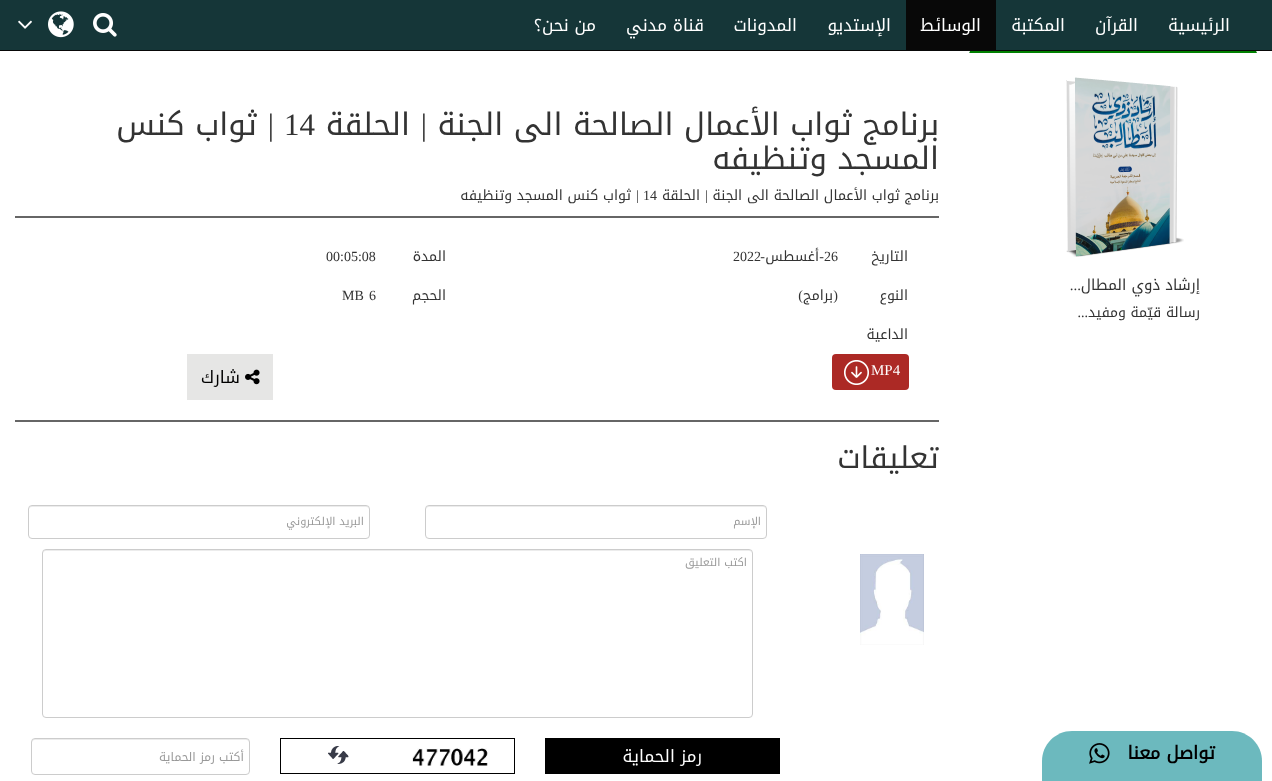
<svg xmlns="http://www.w3.org/2000/svg" xmlns:xlink="http://www.w3.org/1999/xlink" width="1272" height="781" viewBox="0 0 1272 781">
<style>
.cls-1{font:17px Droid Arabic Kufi;direction:rtl;fill:#ffffff}
.cls-2{font:bold 18px Droid Arabic Kufi;direction:rtl;fill:#000000}
.cls-3{font:15px Droid Arabic Kufi;direction:rtl;fill:#333333}
.cls-4{font:15px Liberation Serif;direction:rtl;fill:#333333}
.cls-5{font:14px Droid Arabic Kufi;direction:rtl;fill:#333333}
.cls-6{font:14px Liberation Serif;direction:rtl;fill:#333333}
.cls-7{font:31px Droid Arabic Kufi;direction:rtl;fill:#333333}
.cls-8{font:31px Liberation Serif;direction:rtl;fill:#333333}
.cls-9{font:31px Liberation Serif;fill:#333333}
.cls-10{font:14px Liberation Serif;fill:#333333}
.cls-11{font:15px Liberation Serif;fill:#ffffff}
.cls-12{font:17px Droid Arabic Kufi;direction:rtl;fill:#000000}
.cls-13{font:30px Droid Arabic Kufi;direction:rtl;fill:#333333}
.cls-14{font:11px Droid Arabic Kufi;direction:rtl;fill:#999999}
.cls-15{font:12px Droid Arabic Kufi;direction:rtl;fill:#999999}
</style>
<rect width="100%" height="100%" fill="#ffffff"/>
<image xlink:href="image4.png" x="969" y="51" width="288" height="2"/>
<path fill="#eeeeee" d="M1257 5V53L1256 51V6Z"/>
<path fill="#008000" d="M1257 53H969L970 51H1256Z"/>
<path fill="#eeeeee" d="M969 53V5L970 6V51Z"/>
<rect fill="#153638" x="0" y="0" width="1272" height="50"/>
<rect fill="#080808" x="0" y="50" width="1272" height="1"/>
<rect fill="#080808" x="906" y="0" width="90" height="50"/>
<image xlink:href="image0.png" x="93" y="13" width="24" height="24"/>
<image xlink:href="image1.png" x="48" y="11" width="26" height="27"/>
<image xlink:href="image2.png" x="18" y="20" width="14" height="9"/>
<path fill="#6cb9be" d="M1072 731H1232C1248.5 731 1262 744.5 1262 761V781H1042V761C1042 744.5 1055.5 731 1072 731Z"/>
<image xlink:href="image3.png" x="1089" y="743" width="21" height="21"/>
<image xlink:href="image5.png" x="1066" y="77" width="118" height="180"/>
<rect fill="#666666" x="15" y="216" width="924" height="2"/>
<rect fill="#ac2925" x="832" y="354" width="77" height="36" rx="4"/>
<image xlink:href="image6.png" x="844" y="360" width="25" height="25"/>
<rect fill="#e6e6e5" x="187" y="354" width="86" height="46"/>
<image xlink:href="image7.png" x="245" y="369" width="15" height="16"/>
<rect fill="#666666" x="15" y="420" width="924" height="2"/>
<path fill="#ececec" d="M429 507H763C765 507 766 508 766 510C766 508 765 506 763 506H429C427 506 426 508 426 510C426 508 427 507 429 507Z"/>
<rect fill="none" stroke="#cccccc" x="425.5" y="505.5" width="341" height="33" rx="3.5"/>
<path fill="#ececec" d="M32 507H366C368 507 369 508 369 510C369 508 368 506 366 506H32C30 506 29 508 29 510C29 508 30 507 32 507Z"/>
<rect fill="none" stroke="#cccccc" x="28.5" y="505.5" width="341" height="33" rx="3.5"/>
<image xlink:href="image8.png" x="860" y="554" width="64" height="91"/>
<path fill="#ececec" d="M46 551H749C751 551 752 552 752 554C752 552 751 550 749 550H46C44 550 43 552 43 554C43 552 44 551 46 551Z"/>
<rect fill="none" stroke="#cccccc" x="42.5" y="549.5" width="710" height="168" rx="3.5"/>
<rect fill="#000000" x="545" y="738" width="235" height="36"/>
<rect fill="none" stroke="#000000" x="280.5" y="738.5" width="234" height="35"/>
<image xlink:href="image9.png" x="412" y="748" width="76" height="18"/>
<image xlink:href="image10.png" x="328" y="746" width="21" height="18"/>
<path fill="#ececec" d="M35 740H246C248 740 249 741 249 743V742C249 740 248 739 246 739H35C33 739 32 740 32 742V743C32 741 33 740 35 740Z"/>
<rect fill="none" stroke="#cccccc" x="31.5" y="738.5" width="218" height="36" rx="3.5"/>
<text class="cls-1" x="1230" y="31">الرئيسية</text>
<text class="cls-1" x="1138" y="31">القرآن</text>
<text class="cls-1" x="1065" y="31">المكتبة</text>
<text class="cls-1" x="981" y="31">الوسائط</text>
<text class="cls-1" x="891" y="31">الإستديو</text>
<text class="cls-1" x="797" y="31">المدونات</text>
<text class="cls-1" x="704" y="31">قناة مدني</text>
<text class="cls-1" x="596" y="31">من نحن؟</text>
<text class="cls-2" x="1215" y="759">تواصل معنا</text>
<text class="cls-3" x="1200" y="290">إرشاد ذوي المطال</text>
<text class="cls-4" x="1081" y="290">...</text>
<text class="cls-5" x="1200" y="317">رسالة قيّمة ومفيد</text>
<text class="cls-6" x="1088" y="317">...</text>
<text class="cls-7" x="939" y="135">برنامج ثواب الأعمال الصالحة الی الجنة</text>
<text class="cls-8" x="427" y="135">|</text>
<text class="cls-7" x="410" y="135">الحلقة</text>
<text class="cls-9" x="284" y="135">14</text>
<text class="cls-8" x="274" y="135">|</text>
<text class="cls-7" x="257" y="135">ثواب كنس</text>
<text class="cls-7" x="939" y="169">المسجد وتنظيفه</text>
<text class="cls-5" x="939" y="200">برنامج ثواب الأعمال الصالحة الی الجنة</text>
<text class="cls-6" x="708" y="200">|</text>
<text class="cls-5" x="700" y="200">الحلقة</text>
<text class="cls-10" x="643" y="200">14</text>
<text class="cls-6" x="639" y="200">|</text>
<text class="cls-5" x="631" y="200">ثواب كنس المسجد وتنظيفه</text>
<text class="cls-5" x="908" y="261">التاريخ</text>
<text class="cls-10" x="824" y="261">26</text>
<text class="cls-6" x="824" y="261">-</text>
<text class="cls-5" x="819" y="261">أغسطس</text>
<text class="cls-6" x="765" y="261">-</text>
<text class="cls-10" x="733" y="261">2022</text>
<text class="cls-5" x="908" y="300">النوع</text>
<text class="cls-6" x="838" y="300">(</text>
<text class="cls-5" x="833" y="300">برامج</text>
<text class="cls-6" x="803" y="300">)</text>
<text class="cls-5" x="908" y="339">الداعية</text>
<text class="cls-5" x="446" y="261">المدة</text>
<text class="cls-10" x="326" y="261">00:05:08</text>
<text class="cls-5" x="446" y="300">الحجم</text>
<text class="cls-10" x="369" y="300">6</text>
<text class="cls-10" x="342" y="300">MB</text>
<text class="cls-11" x="871" y="375">MP4</text>
<text class="cls-12" x="240" y="383">شارك</text>
<text class="cls-13" x="939" y="468">تعليقات</text>
<text class="cls-14" x="761" y="525">الإسم</text>
<text class="cls-14" x="364" y="525">البريد الإلكتروني</text>
<text class="cls-14" x="747" y="566">اكتب التعليق</text>
<text class="cls-1" x="702" y="762">رمز الحماية</text>
<text class="cls-15" x="244" y="761">أكتب رمز الحماية</text>
</svg>
